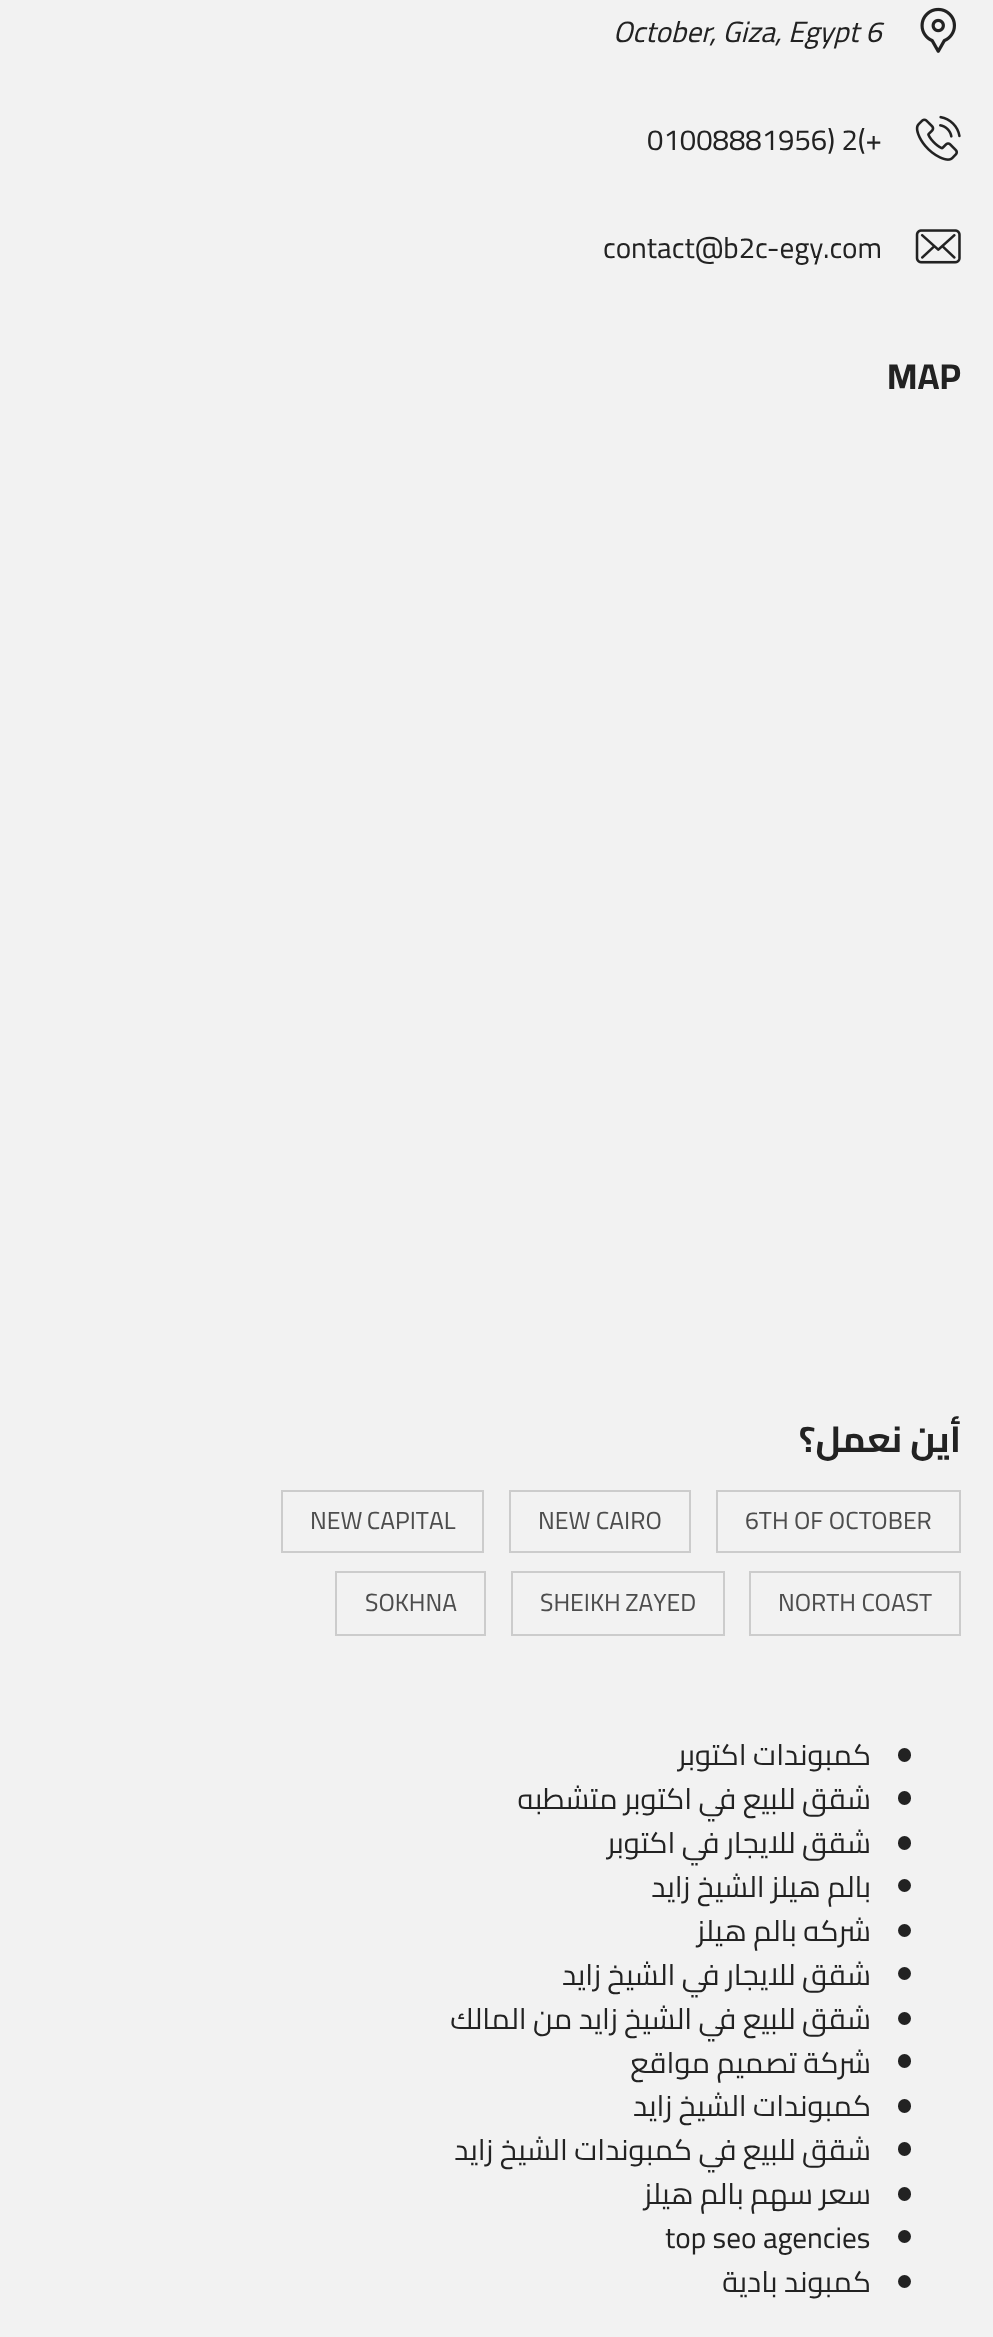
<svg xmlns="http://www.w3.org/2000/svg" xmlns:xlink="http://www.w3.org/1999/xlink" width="993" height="2337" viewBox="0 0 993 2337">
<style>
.cls-1{font:italic 29.25px Cairo;fill:#222222}
.cls-2{font:29.25px Cairo;fill:#222222}
.cls-3{font:bold 36px Cairo;fill:#222222}
.cls-4{font:bold 36px Cairo;direction:rtl;fill:#222222}
.cls-5{font:24.75px Cairo;fill:#4d4d4d}
.cls-6{font:29.25px Cairo;direction:rtl;fill:#222222}
</style>
<rect width="100%" height="100%" fill="#f2f2f2"/>
<image xlink:href="image0.png" x="920" y="7" width="36" height="46"/>
<image xlink:href="image1.png" x="915" y="115" width="46" height="46"/>
<image xlink:href="image2.png" x="915" y="229" width="46" height="35"/>
<rect fill="none" stroke="#cccccc" stroke-width="2" x="717" y="1491" width="243" height="61"/>
<rect fill="none" stroke="#cccccc" stroke-width="2" x="510" y="1491" width="180" height="61"/>
<rect fill="none" stroke="#cccccc" stroke-width="2" x="282" y="1491" width="201" height="61"/>
<rect fill="none" stroke="#cccccc" stroke-width="2" x="750" y="1572" width="210" height="63"/>
<rect fill="none" stroke="#cccccc" stroke-width="2" x="512" y="1572" width="212" height="63"/>
<rect fill="none" stroke="#cccccc" stroke-width="2" x="336" y="1572" width="149" height="63"/>
<rect fill="#222222" x="898" y="1748" width="13" height="14" rx="6.5"/>
<rect fill="#222222" x="898" y="1791" width="13" height="14" rx="6.5"/>
<rect fill="#222222" x="898" y="1836" width="13" height="14" rx="6.5"/>
<circle fill="#222222" cx="904.5" cy="1885.5" r="6.5"/>
<circle fill="#222222" cx="904.5" cy="1930.5" r="6.5"/>
<circle fill="#222222" cx="904.5" cy="1973.5" r="6.5"/>
<circle fill="#222222" cx="904.5" cy="2018.5" r="6.5"/>
<rect fill="#222222" x="898" y="2054" width="13" height="14" rx="6.5"/>
<rect fill="#222222" x="898" y="2099" width="13" height="14" rx="6.5"/>
<rect fill="#222222" x="898" y="2142" width="13" height="14" rx="6.5"/>
<rect fill="#222222" x="898" y="2187" width="13" height="14" rx="6.5"/>
<circle fill="#222222" cx="904.5" cy="2236.5" r="6.5"/>
<circle fill="#222222" cx="904.5" cy="2281.5" r="6.5"/>
<text class="cls-1" x="613" y="42">October, Giza, Egypt 6</text>
<text class="cls-2" x="647" y="150">01008881956) 2(+</text>
<text class="cls-2" x="603" y="258">contact@b2c-egy.com</text>
<text class="cls-3" x="887" y="389">MAP</text>
<text class="cls-4" x="961" y="1452">أين نعمل؟</text>
<text class="cls-5" x="745" y="1529">6TH OF OCTOBER</text>
<text class="cls-5" x="538" y="1529">NEW CAIRO</text>
<text class="cls-5" x="310" y="1529" word-spacing="-1">NEW CAPITAL</text>
<text class="cls-5" x="778" y="1611">NORTH COAST</text>
<text class="cls-5" x="540" y="1611" word-spacing="-1">SHEIKH ZAYED</text>
<text class="cls-5" x="365" y="1611">SOKHNA</text>
<text class="cls-6"><tspan x="871" y="1765">كمبوندات اكتوبر</tspan><tspan x="871" y="1809">شقق للبيع في اكتوبر متشطبه</tspan><tspan x="871" y="1853">شقق للايجار في اكتوبر</tspan><tspan x="871" y="1897">بالم هيلز الشيخ زايد</tspan><tspan x="871" y="1941">شركه بالم هيلز</tspan><tspan x="871" y="1985">شقق للايجار في الشيخ زايد</tspan><tspan x="871" y="2029">شقق للبيع في الشيخ زايد من المالك</tspan><tspan x="871" y="2073">شركة تصميم مواقع</tspan><tspan x="871" y="2116">كمبوندات الشيخ زايد</tspan><tspan x="871" y="2160">شقق للبيع في كمبوندات الشيخ زايد</tspan><tspan x="871" y="2204">سعر سهم بالم هيلز</tspan></text>
<text class="cls-2" x="665" y="2248">top seo agencies</text>
<text class="cls-6" x="871" y="2292">كمبوند بادية</text>
</svg>
